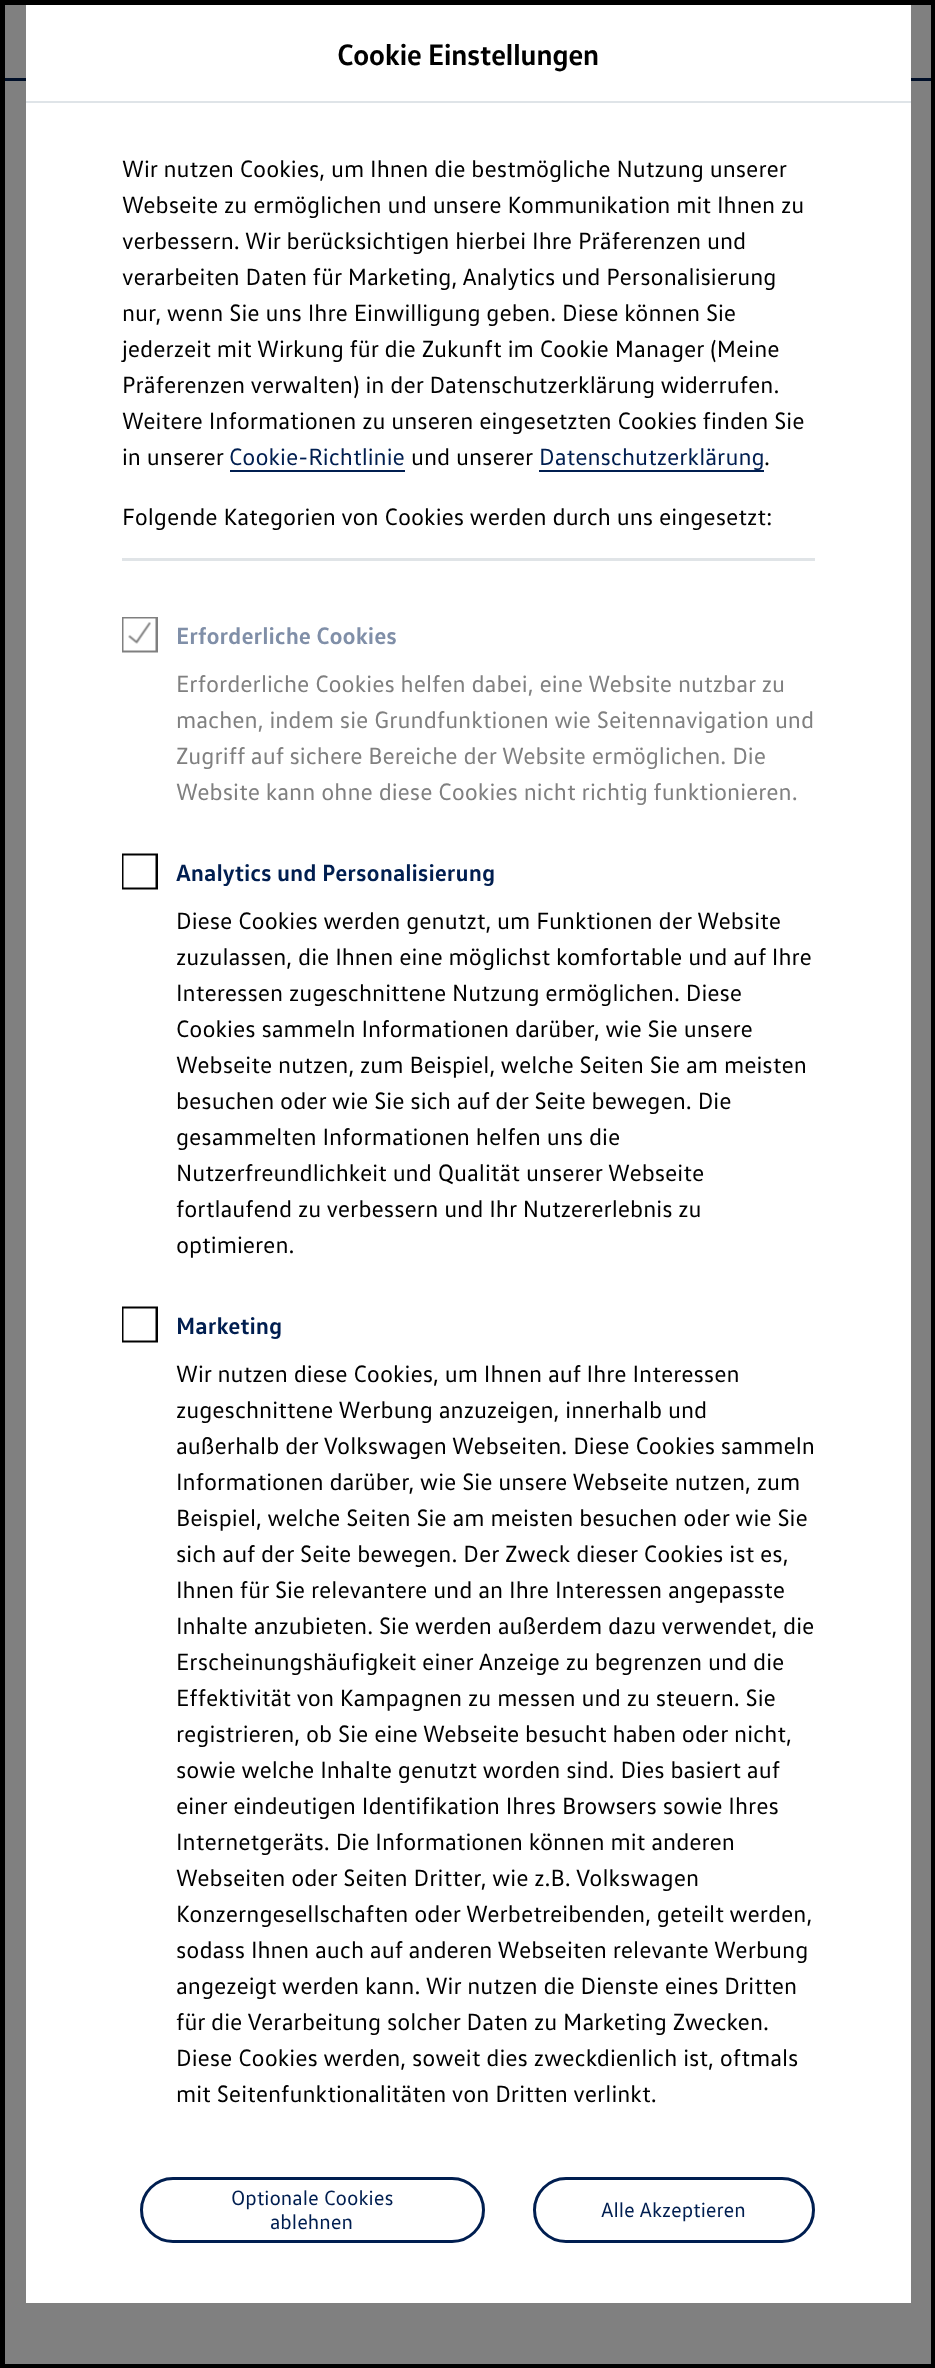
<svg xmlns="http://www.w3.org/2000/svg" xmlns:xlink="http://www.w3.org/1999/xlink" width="935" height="2368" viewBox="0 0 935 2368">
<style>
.cls-1{font:bold 30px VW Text;letter-spacing:-0.5px;fill:#000000}
.cls-2{font:24px VW Text;fill:#000000}
.cls-3{font:24px VW Text;fill:#001e50}
.cls-4{font:bold 24px VW Text;fill:#808fa8}
.cls-5{font:24px VW Text;fill:#808080}
.cls-6{font:bold 24px VW Text;fill:#001e50}
.cls-7{font:21px VW Text;fill:#001e50}
</style>
<rect width="100%" height="100%" fill="#808080"/>
<rect fill="#000f28" x="0" y="78" width="26" height="3"/>
<rect fill="#000f28" x="911" y="78" width="24" height="3"/>
<rect fill="none" stroke="#000000" stroke-width="5" x="2.5" y="2.5" width="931" height="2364"/>
<rect fill="#ffffff" x="26" y="5" width="885" height="2298"/>
<rect fill="#dfe4e8" x="26" y="101" width="885" height="2"/>
<rect fill="#001e50" x="230" y="470" width="175" height="2"/>
<rect fill="#001e50" x="539" y="470" width="225" height="2"/>
<rect fill="#e0e4e7" x="122" y="558" width="693" height="3"/>
<image xlink:href="image0.png" x="122" y="617" width="36" height="36"/>
<image xlink:href="image1.png" x="128" y="622" width="23" height="22"/>
<image xlink:href="image2.png" x="122" y="853" width="36" height="37"/>
<image xlink:href="image2.png" x="122" y="1306" width="36" height="37"/>
<rect fill="none" stroke="#001e50" stroke-width="3" x="141.5" y="2178.5" width="342" height="63" rx="31.5"/>
<rect fill="none" stroke="#001e50" stroke-width="3" x="534.5" y="2178.5" width="279" height="63" rx="31.5"/>
<text class="cls-1" x="337" y="65">Cookie Einstellungen</text>
<text class="cls-2"><tspan x="122" y="177">Wir nutzen Cookies, um Ihnen die bestmögliche Nutzung unserer</tspan><tspan x="122" y="213">Webseite zu ermöglichen und unsere Kommunikation mit Ihnen zu</tspan><tspan x="122" y="249">verbessern. Wir berücksichtigen hierbei Ihre Präferenzen und</tspan><tspan x="122" y="285">verarbeiten Daten für Marketing, Analytics und Personalisierung</tspan><tspan x="122" y="321">nur, wenn Sie uns Ihre Einwilligung geben. Diese können Sie</tspan><tspan x="122" y="357">jederzeit mit Wirkung für die Zukunft im Cookie Manager (Meine</tspan><tspan x="122" y="393">Präferenzen verwalten) in der Datenschutzerklärung widerrufen.</tspan><tspan x="122" y="429">Weitere Informationen zu unseren eingesetzten Cookies finden Sie</tspan><tspan x="122" y="465">in unserer</tspan></text>
<text class="cls-3" x="229" y="465">Cookie-Richtlinie</text>
<text class="cls-2" x="411" y="465">und unserer</text>
<text class="cls-3" x="539" y="465">Datenschutzerklärung</text>
<text class="cls-2" x="764" y="465">.</text>
<text class="cls-2" x="122" y="525">Folgende Kategorien von Cookies werden durch uns eingesetzt:</text>
<text class="cls-4" x="176" y="644">Erforderliche Cookies</text>
<text class="cls-5"><tspan x="176" y="692">Erforderliche Cookies helfen dabei, eine Website nutzbar zu</tspan><tspan x="176" y="728">machen, indem sie Grundfunktionen wie Seitennavigation und</tspan><tspan x="176" y="764">Zugriff auf sichere Bereiche der Website ermöglichen. Die</tspan><tspan x="176" y="800">Website kann ohne diese Cookies nicht richtig funktionieren.</tspan></text>
<text class="cls-6" x="176" y="881">Analytics und Personalisierung</text>
<text class="cls-2"><tspan x="176" y="929">Diese Cookies werden genutzt, um Funktionen der Website</tspan><tspan x="176" y="965">zuzulassen, die Ihnen eine möglichst komfortable und auf Ihre</tspan><tspan x="176" y="1001">Interessen zugeschnittene Nutzung ermöglichen. Diese</tspan><tspan x="176" y="1037">Cookies sammeln Informationen darüber, wie Sie unsere</tspan><tspan x="176" y="1073">Webseite nutzen, zum Beispiel, welche Seiten Sie am meisten</tspan><tspan x="176" y="1109">besuchen oder wie Sie sich auf der Seite bewegen. Die</tspan><tspan x="176" y="1145">gesammelten Informationen helfen uns die</tspan><tspan x="176" y="1181">Nutzerfreundlichkeit und Qualität unserer Webseite</tspan><tspan x="176" y="1217">fortlaufend zu verbessern und Ihr Nutzererlebnis zu</tspan><tspan x="176" y="1253">optimieren.</tspan></text>
<text class="cls-6" x="176" y="1334">Marketing</text>
<text class="cls-2"><tspan x="176" y="1382">Wir nutzen diese Cookies, um Ihnen auf Ihre Interessen</tspan><tspan x="176" y="1418">zugeschnittene Werbung anzuzeigen, innerhalb und</tspan><tspan x="176" y="1454">außerhalb der Volkswagen Webseiten. Diese Cookies sammeln</tspan><tspan x="176" y="1490">Informationen darüber, wie Sie unsere Webseite nutzen, zum</tspan><tspan x="176" y="1526">Beispiel, welche Seiten Sie am meisten besuchen oder wie Sie</tspan><tspan x="176" y="1562">sich auf der Seite bewegen. Der Zweck dieser Cookies ist es,</tspan><tspan x="176" y="1598">Ihnen für Sie relevantere und an Ihre Interessen angepasste</tspan><tspan x="176" y="1634">Inhalte anzubieten. Sie werden außerdem dazu verwendet, die</tspan><tspan x="176" y="1670">Erscheinungshäufigkeit einer Anzeige zu begrenzen und die</tspan><tspan x="176" y="1706">Effektivität von Kampagnen zu messen und zu steuern. Sie</tspan><tspan x="176" y="1742">registrieren, ob Sie eine Webseite besucht haben oder nicht,</tspan><tspan x="176" y="1778">sowie welche Inhalte genutzt worden sind. Dies basiert auf</tspan><tspan x="176" y="1814">einer eindeutigen Identifikation Ihres Browsers sowie Ihres</tspan><tspan x="176" y="1850">Internetgeräts. Die Informationen können mit anderen</tspan><tspan x="176" y="1886">Webseiten oder Seiten Dritter, wie z.B. Volkswagen</tspan><tspan x="176" y="1922">Konzerngesellschaften oder Werbetreibenden, geteilt werden,</tspan><tspan x="176" y="1958">sodass Ihnen auch auf anderen Webseiten relevante Werbung</tspan><tspan x="176" y="1994">angezeigt werden kann. Wir nutzen die Dienste eines Dritten</tspan><tspan x="176" y="2030">für die Verarbeitung solcher Daten zu Marketing Zwecken.</tspan><tspan x="176" y="2066">Diese Cookies werden, soweit dies zweckdienlich ist, oftmals</tspan><tspan x="176" y="2102">mit Seitenfunktionalitäten von Dritten verlinkt.</tspan></text>
<text class="cls-7" x="231" y="2205">Optionale Cookies</text>
<text class="cls-7" x="270" y="2229">ablehnen</text>
<text class="cls-7" x="601" y="2217">Alle Akzeptieren</text>
</svg>
